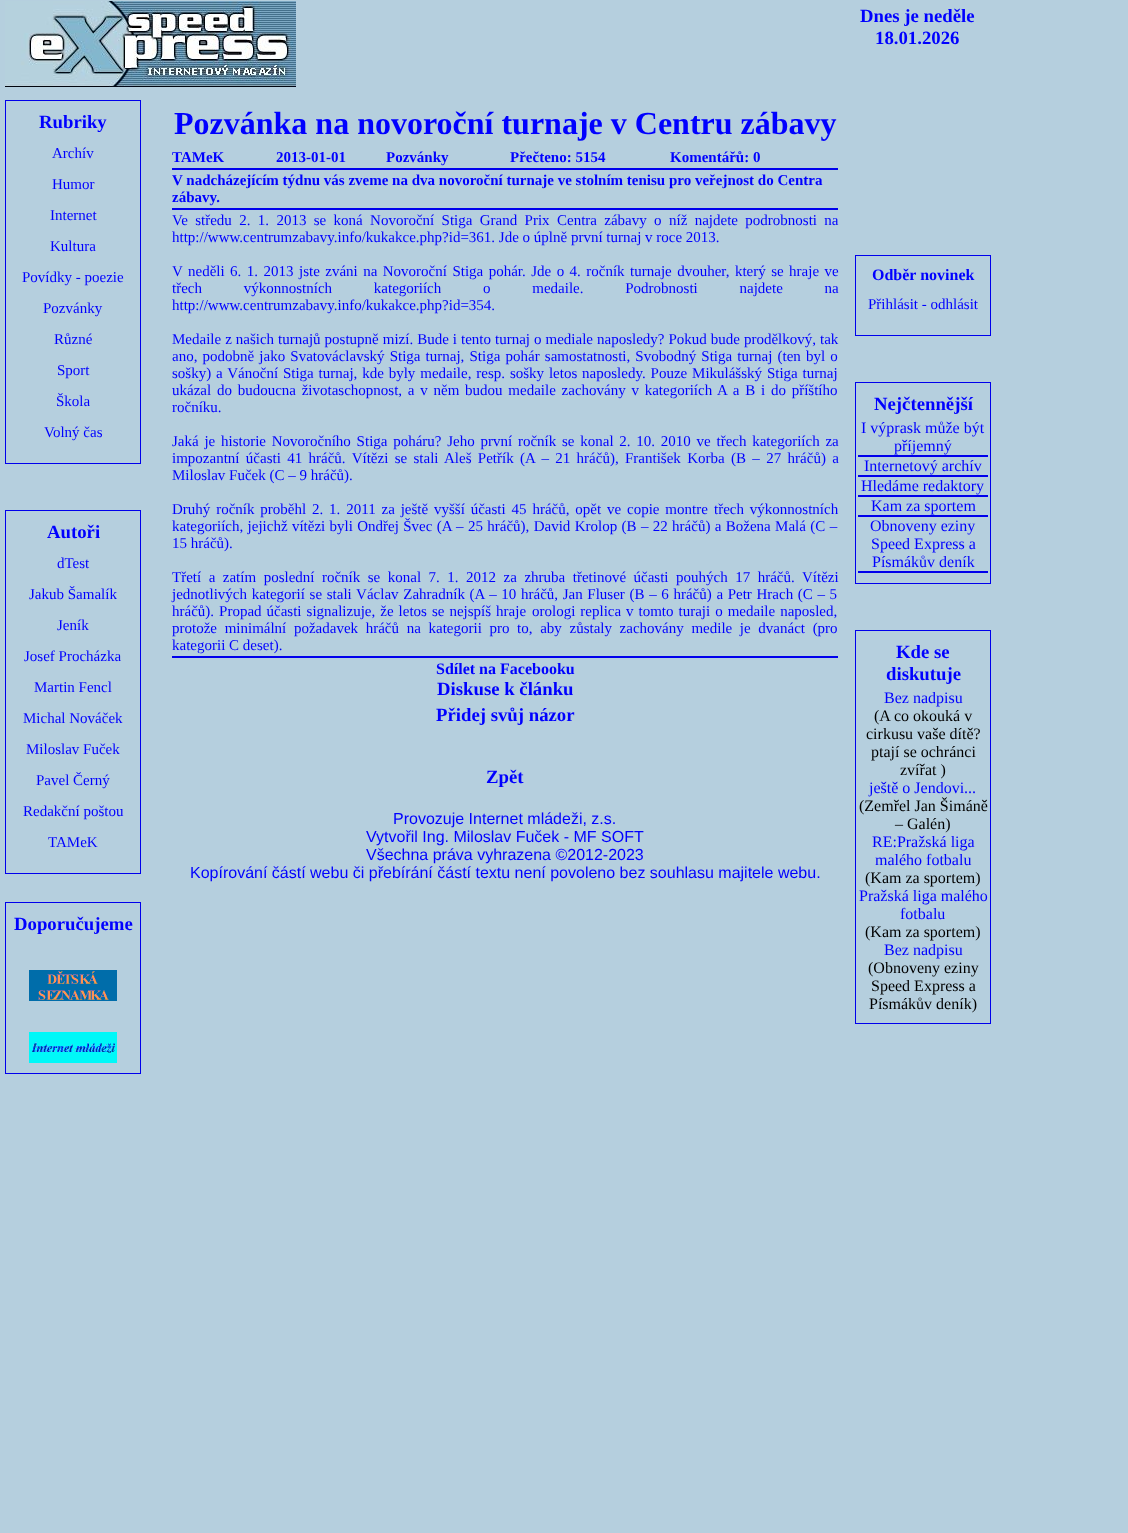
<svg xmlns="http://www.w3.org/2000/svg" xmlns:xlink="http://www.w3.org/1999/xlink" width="1128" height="1533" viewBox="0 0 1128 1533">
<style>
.cls-1{font:bold 32px Liberation Serif;fill:#0000ff}
.cls-2{font:bold 15px Liberation Serif;fill:#0000ff}
.cls-3{font:15px Liberation Serif;fill:#0000ff}
.cls-4{font:bold 16px Liberation Serif;fill:#0000ff}
.cls-5{font:bold 18.75px Liberation Serif;fill:#0000ff}
.cls-6{font:16px Liberation Sans;fill:#0000ff}
.cls-7{font:16px Liberation Serif;fill:#0000ff}
.cls-8{font:16px Liberation Serif;fill:#000000}
</style>
<rect width="100%" height="100%" fill="#b5cfde"/>
<image xlink:href="image0.png" x="5" y="1" width="291" height="86"/>
<rect fill="#0000ec" x="172" y="168" width="666" height="2"/>
<rect fill="#0000ec" x="172" y="208" width="666" height="2"/>
<rect fill="#0000ec" x="172" y="656" width="666" height="2"/>
<rect fill="none" stroke="#0000ec" x="855.5" y="255.5" width="135" height="80"/>
<rect fill="none" stroke="#0000ec" x="855.5" y="382.5" width="135" height="201"/>
<rect fill="#0000ec" x="858" y="455" width="130" height="2"/>
<rect fill="#0000ec" x="858" y="475" width="130" height="2"/>
<rect fill="#0000ec" x="858" y="495" width="130" height="2"/>
<rect fill="#0000ec" x="858" y="515" width="130" height="2"/>
<rect fill="#0000ec" x="858" y="571" width="130" height="2"/>
<rect fill="none" stroke="#0000ec" x="855.5" y="630.5" width="135" height="393"/>
<rect fill="none" stroke="#0000ec" x="5.5" y="100.5" width="135" height="363"/>
<rect fill="none" stroke="#0000ec" x="5.5" y="510.5" width="135" height="363"/>
<rect fill="none" stroke="#0000ec" x="5.5" y="902.5" width="135" height="171"/>
<image xlink:href="image1.png" x="29" y="970" width="88" height="31"/>
<image xlink:href="image2.png" x="29" y="1032" width="88" height="31"/>
<text class="cls-1" x="174" y="134">Pozvánka na novoroční turnaje v Centru zábavy</text>
<text class="cls-2" x="172" y="162">TAMeK</text>
<text class="cls-2" x="276" y="162">2013-01-01</text>
<text class="cls-2" x="386" y="162">Pozvánky</text>
<text class="cls-2" x="510" y="162">Přečteno: 5154</text>
<text class="cls-2" x="670" y="162">Komentářů: 0</text>
<text class="cls-2"><tspan x="172" y="185">V nadcházejícím týdnu vás zveme na dva novoroční turnaje ve stolním tenisu pro veřejnost do Centra</tspan><tspan x="172" y="202">zábavy.</tspan></text>
<text class="cls-3"><tspan x="172" y="225" word-spacing="3.6">Ve středu 2. 1. 2013 se koná Novoroční Stiga Grand Prix Centra zábavy o níž najdete podrobnosti na</tspan><tspan x="172" y="242">http://www.centrumzabavy.info/kukakce.php?id=361. Jde o úplně první turnaj v roce 2013.</tspan></text>
<text class="cls-3"><tspan x="172" y="276" word-spacing="1.7">V neděli 6. 1. 2013 jste zváni na Novoroční Stiga pohár. Jde o 4. ročník turnaje dvouher, který se hraje ve</tspan><tspan x="172" y="293" word-spacing="38">třech výkonnostních kategoriích o medaile. Podrobnosti najdete na</tspan><tspan x="172" y="310">http://www.centrumzabavy.info/kukakce.php?id=354.</tspan></text>
<text class="cls-3"><tspan x="172" y="344" word-spacing="0.25">Medaile z našich turnajů postupně mizí. Bude i tento turnaj o mediale naposledy? Pokud bude prodělkový, tak</tspan><tspan x="172" y="361" word-spacing="1.4">ano, podobně jako Svatováclavský Stiga turnaj, Stiga pohár samostatnosti, Svobodný Stiga turnaj (ten byl o</tspan><tspan x="172" y="378" word-spacing="1.1">sošky) a Vánoční Stiga turnaj, kde byly medaile, resp. sošky letos naposledy. Pouze Mikulášský Stiga turnaj</tspan><tspan x="172" y="395" word-spacing="2">ukázal do budoucna životaschopnost, a v něm budou medaile zachovány v kategoriích A a B i do příštího</tspan><tspan x="172" y="412">ročníku.</tspan></text>
<text class="cls-3"><tspan x="172" y="446" word-spacing="2">Jaká je historie Novoročního Stiga poháru? Jeho první ročník se konal 2. 10. 2010 ve třech kategoriích za</tspan><tspan x="172" y="463" word-spacing="2.6">impozantní účasti 41 hráčů. Vítězi se stali Aleš Petřík (A – 21 hráčů), František Korba (B – 27 hráčů) a</tspan><tspan x="172" y="480">Miloslav Fuček (C – 9 hráčů).</tspan></text>
<text class="cls-3" x="172" y="514" word-spacing="2.1">Druhý ročník proběhl 2. 1. 2011 za ještě vyšší účasti 45 hráčů, opět ve</text>
<text class="cls-3" x="627" y="514" word-spacing="2.1">copie montre</text>
<text class="cls-3" x="714" y="514" word-spacing="2.1">třech výkonnostních</text>
<text class="cls-3"><tspan x="172" y="531" word-spacing="0.6">kategoriích, jejichž vítězi byli Ondřej Švec (A – 25 hráčů), David Krolop (B – 22 hráčů) a Božena Malá (C –</tspan><tspan x="172" y="548">15 hráčů).</tspan></text>
<text class="cls-3"><tspan x="172" y="582" word-spacing="3.75">Třetí a zatím poslední ročník se konal 7. 1. 2012 za zhruba třetinové účasti pouhých 17 hráčů. Vítězi</tspan><tspan x="172" y="599" word-spacing="0.9">jednotlivých kategorií se stali Václav Zahradník (A – 10 hráčů, Jan Fluser (B – 6 hráčů) a Petr Hrach (C – 5</tspan><tspan x="172" y="616" word-spacing="1.25">hráčů). Propad účasti signalizuje, že letos se nejspíš hraje</tspan></text>
<text class="cls-3" x="532" y="616" word-spacing="1.25">orologi replica</text>
<text class="cls-3" x="626" y="616" word-spacing="1.25">v tomto turaji o medaile naposled,</text>
<text class="cls-3"><tspan x="172" y="633" word-spacing="3.9">protože minimální požadavek hráčů na kategorii pro to, aby zůstaly zachovány medile je dvanáct (pro</tspan><tspan x="172" y="650">kategorii C deset).</tspan></text>
<text class="cls-4" x="436" y="674">Sdílet na Facebooku</text>
<text class="cls-5" x="437" y="695">Diskuse k článku</text>
<text class="cls-5" x="436" y="721">Přidej svůj názor</text>
<text class="cls-5" x="486" y="783">Zpět</text>
<text class="cls-6" x="393" y="824">Provozuje Internet mládeži, z.s.</text>
<text class="cls-6"><tspan x="366" y="842">Vytvořil Ing. Miloslav Fuček - MF SOFT</tspan><tspan x="366" y="860">Všechna práva vyhrazena ©2012-2023</tspan></text>
<text class="cls-6" x="190" y="878">Kopírování částí webu či přebírání částí textu není povoleno bez souhlasu majitele webu.</text>
<text class="cls-5" x="860" y="22">Dnes je neděle</text>
<text class="cls-5" x="875" y="44">18.01.2026</text>
<text class="cls-4" x="872" y="280">Odběr novinek</text>
<text class="cls-3" x="868" y="309">Přihlásit - odhlásit</text>
<text class="cls-5" x="874" y="410">Nejčtennější</text>
<text class="cls-7" x="861" y="433">I výprask může být</text>
<text class="cls-7" x="894" y="451">příjemný</text>
<text class="cls-7" x="864" y="471">Internetový archív</text>
<text class="cls-7" x="861" y="491">Hledáme redaktory</text>
<text class="cls-7" x="871" y="511">Kam za sportem</text>
<text class="cls-7" x="870" y="531">Obnoveny eziny</text>
<text class="cls-7" x="871" y="549">Speed Express a</text>
<text class="cls-7" x="872" y="567">Písmákův deník</text>
<text class="cls-5" x="896" y="658">Kde se</text>
<text class="cls-5" x="886" y="680">diskutuje</text>
<text class="cls-7" x="884" y="703">Bez nadpisu</text>
<text class="cls-8" x="874" y="721">(A co okouká v</text>
<text class="cls-8" x="866" y="739">cirkusu vaše dítě?</text>
<text class="cls-8" x="871" y="757">ptají se ochránci</text>
<text class="cls-8" x="900" y="775">zvířat )</text>
<text class="cls-7" x="869" y="793">ještě o Jendovi...</text>
<text class="cls-8" x="859" y="811">(Zemřel Jan Šimáně</text>
<text class="cls-8" x="895" y="829">– Galén)</text>
<text class="cls-7" x="872" y="847">RE:Pražská liga</text>
<text class="cls-7" x="875" y="865">malého fotbalu</text>
<text class="cls-8" x="865" y="883">(Kam za sportem)</text>
<text class="cls-7" x="859" y="901">Pražská liga malého</text>
<text class="cls-7" x="900" y="919">fotbalu</text>
<text class="cls-8" x="865" y="937">(Kam za sportem)</text>
<text class="cls-7" x="884" y="955">Bez nadpisu</text>
<text class="cls-8" x="868" y="973">(Obnoveny eziny</text>
<text class="cls-8" x="871" y="991">Speed Express a</text>
<text class="cls-8" x="869" y="1009">Písmákův deník)</text>
<text class="cls-5" x="39" y="128">Rubriky</text>
<text class="cls-3" x="52" y="158">Archív</text>
<text class="cls-3" x="52" y="189">Humor</text>
<text class="cls-3" x="50" y="220">Internet</text>
<text class="cls-3" x="50" y="251">Kultura</text>
<text class="cls-3" x="22" y="282">Povídky - poezie</text>
<text class="cls-3" x="43" y="313">Pozvánky</text>
<text class="cls-3" x="54" y="344">Různé</text>
<text class="cls-3" x="57" y="375">Sport</text>
<text class="cls-3" x="56" y="406">Škola</text>
<text class="cls-3" x="44" y="437">Volný čas</text>
<text class="cls-5" x="47" y="538">Autoři</text>
<text class="cls-3" x="57" y="568">dTest</text>
<text class="cls-3" x="29" y="599">Jakub Šamalík</text>
<text class="cls-3" x="57" y="630">Jeník</text>
<text class="cls-3" x="24" y="661">Josef Procházka</text>
<text class="cls-3" x="34" y="692">Martin Fencl</text>
<text class="cls-3" x="23" y="723">Michal Nováček</text>
<text class="cls-3" x="26" y="754">Miloslav Fuček</text>
<text class="cls-3" x="36" y="785">Pavel Černý</text>
<text class="cls-3" x="23" y="816">Redakční poštou</text>
<text class="cls-3" x="48" y="847">TAMeK</text>
<text class="cls-5" x="14" y="930">Doporučujeme</text>
</svg>
